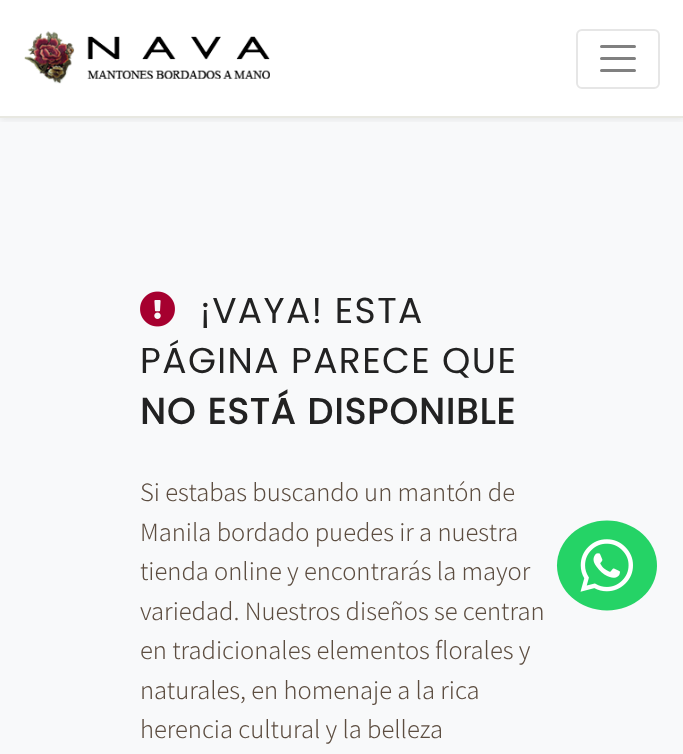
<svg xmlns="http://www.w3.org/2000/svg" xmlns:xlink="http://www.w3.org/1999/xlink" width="683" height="754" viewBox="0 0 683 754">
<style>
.cls-1{font:36px Poppins;letter-spacing:1.4px;fill:#222222}
.cls-2{font:bold 36px Poppins;letter-spacing:1.4px;fill:#222222}
.cls-3{font:300 26.4px Assistant;fill:#5c4d40}
</style>
<defs>
<clipPath id="clip1"><rect x="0" y="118" width="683" height="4"/></clipPath>
</defs>
<rect width="100%" height="100%" fill="#ffffff"/>
<rect fill="#f8f9fa" x="0" y="118" width="683" height="636"/>
<g clip-path="url(#clip1)">
<rect fill="#000000" fill-opacity="0.07" filter="blur(3px)" x="0" y="3" width="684" height="117"/>
</g>
<rect fill="#e8e8e1" x="0" y="116" width="683" height="2"/>
<image xlink:href="image0.png" x="24" y="31" width="246" height="53"/>
<rect fill="none" stroke="#e6e6e6" stroke-width="2" x="577" y="30" width="82" height="58" rx="5"/>
<path fill="none" stroke="#808080" stroke-width="3" stroke-linecap="round" d="M601.5 46.5H634.5M601.5 58.5H634.5M601.5 70.5H634.5"/>
<image xlink:href="image1.png" x="140" y="291" width="35" height="36"/>
<ellipse fill="#25d366" cx="607" cy="565.5" rx="50" ry="45"/>
<image xlink:href="image2.png" x="580" y="539" width="53" height="53"/>
<text class="cls-1" x="200" y="323">¡VAYA! ESTA</text>
<text class="cls-1" x="140" y="373">PÁGINA PARECE QUE</text>
<text class="cls-2" x="140" y="424">NO ESTÁ DISPONIBLE</text>
<text class="cls-3"><tspan x="140" y="501">Si estabas buscando un mantón de</tspan><tspan x="140" y="541">Manila bordado puedes ir a nuestra</tspan><tspan x="140" y="580">tienda online y encontrarás la mayor</tspan><tspan x="140" y="620">variedad. Nuestros diseños se centran</tspan><tspan x="140" y="659">en tradicionales elementos florales y</tspan><tspan x="140" y="699">naturales, en homenaje a la rica</tspan><tspan x="140" y="738">herencia cultural y la belleza</tspan></text>
</svg>
